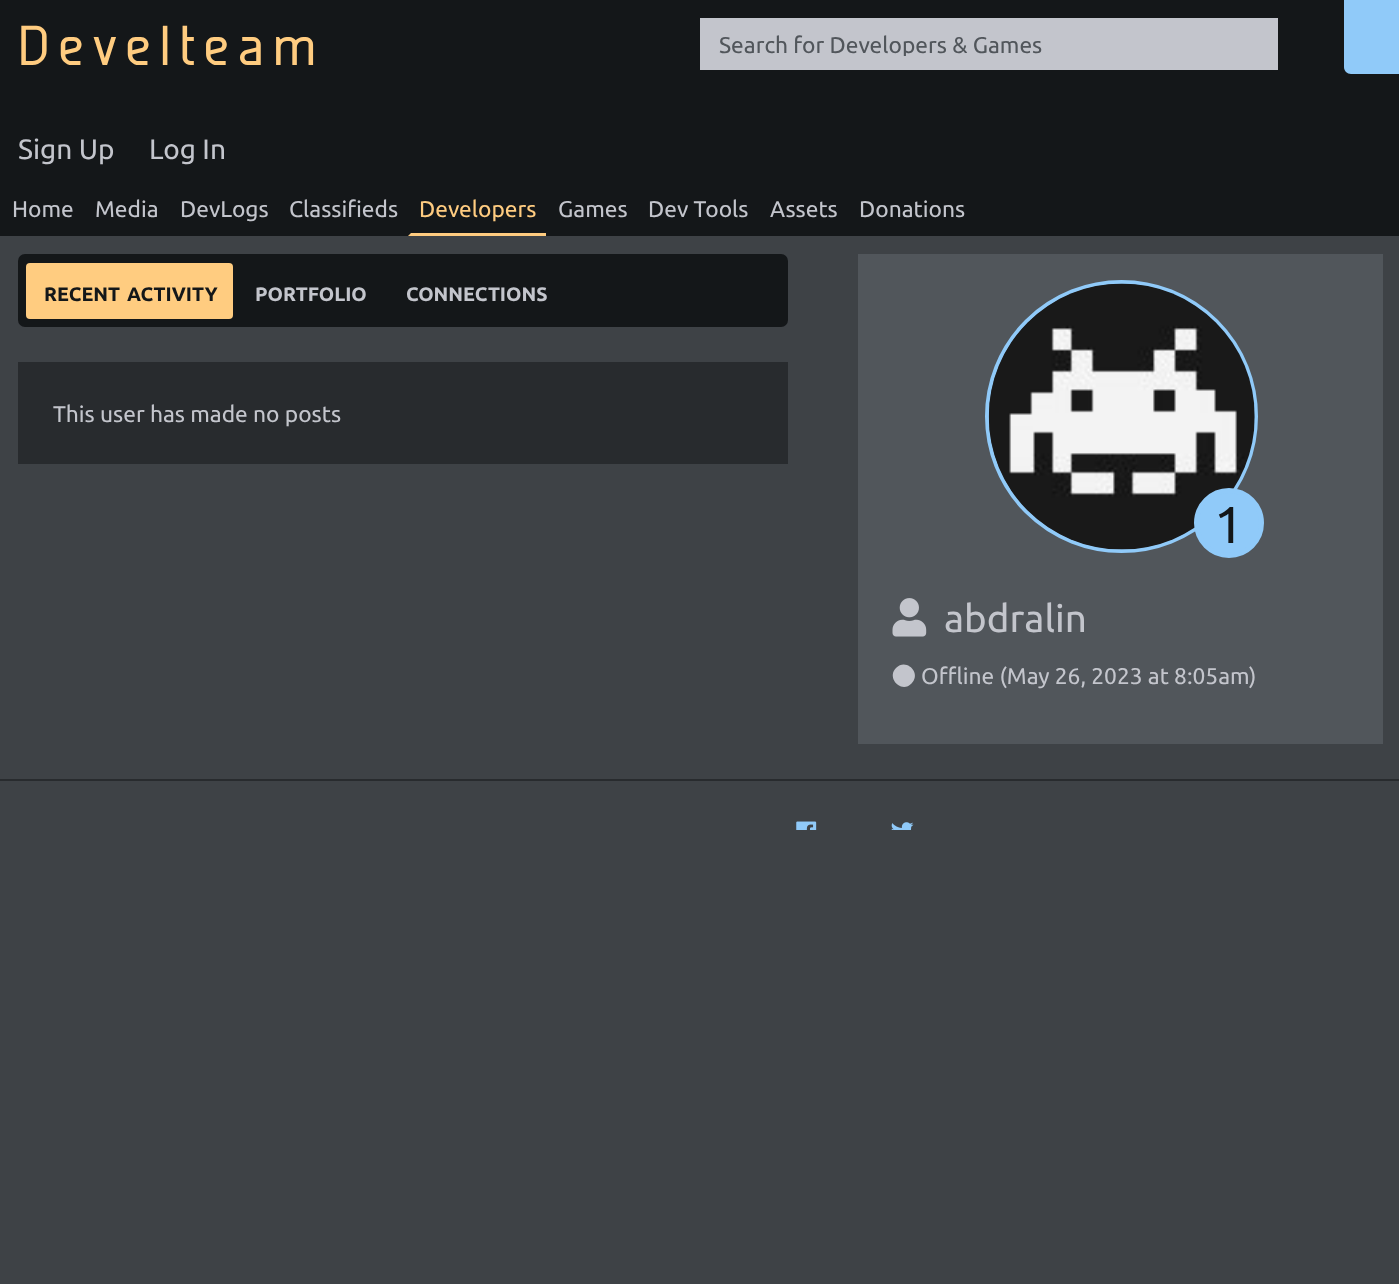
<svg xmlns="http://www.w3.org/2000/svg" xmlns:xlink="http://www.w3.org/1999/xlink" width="1399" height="1284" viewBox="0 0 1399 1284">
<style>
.cls-1{font:500 56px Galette;letter-spacing:8.75px;fill:#ffcc80}
.cls-2{font:22.75px Ubuntu;fill:#51565b}
.cls-3{font:28px Ubuntu;fill:#c3c5cc}
.cls-4{font:22.75px Ubuntu;fill:#c3c5cc}
.cls-5{font:22.75px Ubuntu;fill:#ffcc80}
.cls-6{font:bold 19.5px Ubuntu;fill:#141719}
.cls-7{font:bold 19.5px Ubuntu;fill:#c3c5cc}
.cls-8{font:52px Ubuntu;fill:#141719}
.cls-9{font:38.5px Ubuntu;fill:#c3c5cc}
</style>
<defs>
<clipPath id="clip1"><rect x="719" y="32" width="539" height="24"/></clipPath>
</defs>
<rect width="100%" height="100%" fill="#3e4246"/>
<rect fill="#141719" x="0" y="0" width="1399" height="236"/>
<rect fill="#c3c5cc" x="700" y="18" width="578" height="52"/>
<path fill="#90caf9" d="M1344 0H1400V74H1351C1347 74 1344 71 1344 67Z"/>
<path fill="#ffcc80" d="M546 236H408L411 233H546Z"/>
<rect fill="#141719" x="18" y="254" width="770" height="73" rx="7"/>
<rect fill="#ffcc80" x="26" y="263" width="207" height="56" rx="4"/>
<rect fill="#282b2e" x="18" y="362" width="770" height="102"/>
<rect fill="#51565b" x="858" y="254" width="525" height="490"/>
<path fill="none" stroke="#90caf9" stroke-width="35" stroke-dasharray="0 17500" d="M1031 325.5C1080 276.5 1160 276.5 1209 325.5C1258.5 375 1258.5 454.5 1209 504C1160 553 1080 553 1031 504C981.5 454.5 981.5 375 1031 325.5Z"/>
<circle fill="none" stroke="#90caf9" stroke-width="4" cx="1121.5" cy="416.5" r="134.5"/>
<image xlink:href="image0.png" x="988" y="283" width="267" height="267"/>
<circle fill="#90caf9" stroke="#90caf9" stroke-width="5" cx="1229" cy="523" r="32.5"/>
<image xlink:href="image1.png" x="892" y="598" width="35" height="39"/>
<path fill="#c3c5cc" d="M896 668C906.5 657.5 922 673.5 911.5 683.5C901.5 694 886 678 896 668Z"/>
<rect fill="#282b2e" x="0" y="779" width="1399" height="2"/>
<image xlink:href="image2.png" x="796" y="821" width="21" height="9"/>
<image xlink:href="image3.png" x="891" y="822" width="23" height="8"/>
<text class="cls-1" x="18" y="65">Develteam</text>
<g clip-path="url(#clip1)">
<text class="cls-2" x="719" y="53">Search for Developers &amp; Games</text>
</g>
<text class="cls-3" x="18" y="159">Sign Up</text>
<text class="cls-3" x="149" y="159">Log In</text>
<text class="cls-4" x="12" y="217">Home</text>
<text class="cls-4" x="95" y="217">Media</text>
<text class="cls-4" x="180" y="217">DevLogs</text>
<text class="cls-4" x="289" y="217">Classifieds</text>
<text class="cls-5" x="419" y="217">Developers</text>
<text class="cls-4" x="558" y="217">Games</text>
<text class="cls-4" x="648" y="217">Dev Tools</text>
<text class="cls-4" x="770" y="217">Assets</text>
<text class="cls-4" x="859" y="217">Donations</text>
<text class="cls-6" x="44" y="301">RECENT</text>
<text class="cls-6" x="127" y="301">ACTIVITY</text>
<text class="cls-7" x="255" y="301">PORTFOLIO</text>
<text class="cls-7" x="406" y="301">CONNECTIONS</text>
<text class="cls-4" x="53" y="422">This user has made no posts</text>
<text class="cls-8" x="1214" y="543">1</text>
<text class="cls-9" x="944" y="632">abdralin</text>
<text class="cls-4" x="921" y="684">Offline (May 26, 2023 at 8:05am)</text>
</svg>
